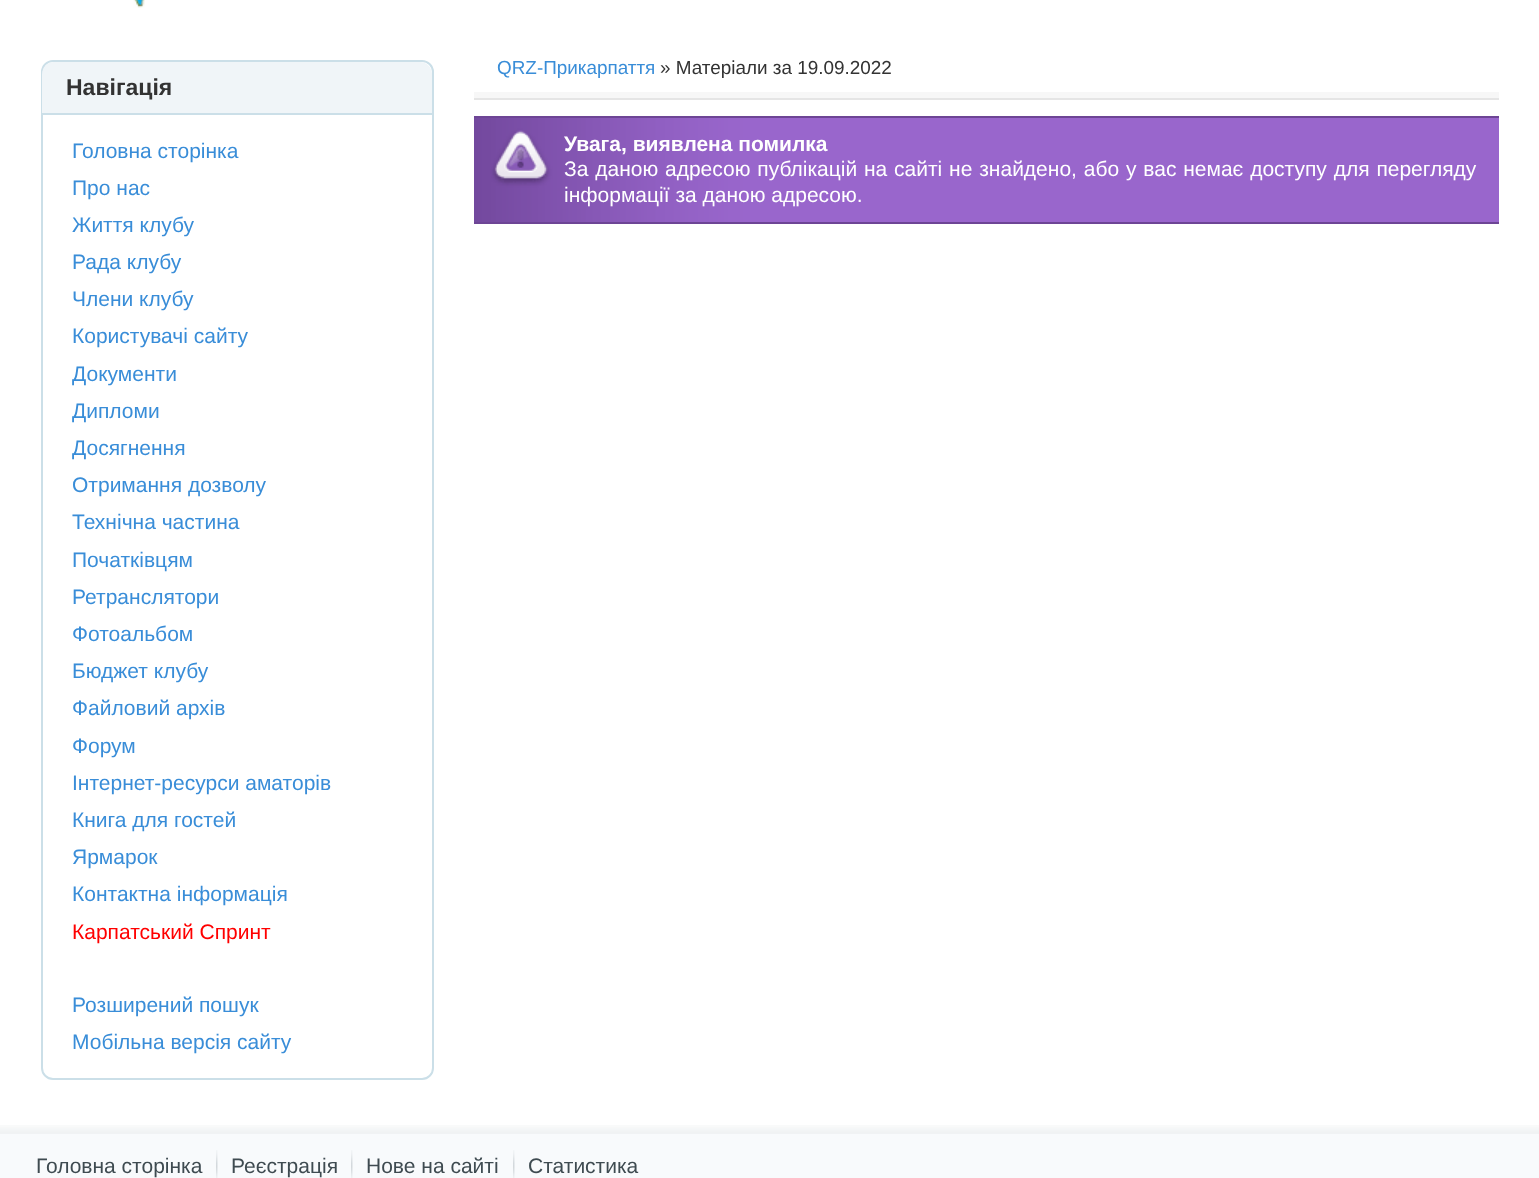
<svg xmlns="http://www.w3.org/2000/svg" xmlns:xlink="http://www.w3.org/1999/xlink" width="1539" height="1178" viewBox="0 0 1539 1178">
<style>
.cls-1{font:bold 23px Liberation Sans;fill:#333333}
.cls-2{font:21px Liberation Sans;fill:#398dd8}
.cls-3{font:21px Liberation Sans;fill:#ff0000}
.cls-4{font:18.9px Liberation Sans;fill:#398dd8}
.cls-5{font:18.9px Liberation Sans;fill:#333333}
.cls-6{font:bold 21px Liberation Sans;fill:#ffffff}
.cls-7{font:21px Liberation Sans;fill:#ffffff}
.cls-8{font:21px Liberation Sans;fill:#3f4b51}
</style>
<rect width="100%" height="100%" fill="#ffffff"/>
<image xlink:href="image0.png" x="133" y="0" width="12" height="8"/>
<rect fill="none" stroke="#cbdfe8" stroke-width="2" x="42" y="61" width="391" height="1018" rx="11"/>
<path fill="#f0f5f8" d="M54 62H420C426.5 62 432 67.5 432 74V114H42V74C42 67.5 47.5 62 54 62Z"/>
<rect fill="#cbdfe8" x="42" y="113" width="390" height="2"/>
<rect fill="#f7f7f7" x="474" y="92" width="1025" height="6"/>
<rect fill="#e5e5e5" x="474" y="98" width="1025" height="2"/>
<rect fill="#9966cc" x="808" y="118" width="691" height="104"/>
<image xlink:href="image1.png" x="474" y="118" width="335" height="104"/>
<rect fill="#6d4595" x="474" y="116" width="1025" height="2"/>
<rect fill="#6d4595" x="474" y="222" width="1025" height="2"/>
<rect fill="#f8fafc" x="0" y="1134" width="1539" height="44"/>
<image xlink:href="image2.png" x="0" y="1125" width="1539" height="9"/>
<image xlink:href="image3.png" x="216" y="1150" width="2" height="28"/>
<image xlink:href="image3.png" x="351" y="1150" width="2" height="28"/>
<image xlink:href="image3.png" x="513" y="1150" width="2" height="28"/>
<text class="cls-1" x="66" y="95">Навігація</text>
<text class="cls-2"><tspan x="72" y="158">Головна сторінка</tspan><tspan x="72" y="195">Про нас</tspan><tspan x="72" y="232">Життя клубу</tspan><tspan x="72" y="269">Рада клубу</tspan><tspan x="72" y="306">Члени клубу</tspan><tspan x="72" y="343">Користувачі сайту</tspan><tspan x="72" y="381">Документи</tspan><tspan x="72" y="418">Дипломи</tspan><tspan x="72" y="455">Досягнення</tspan><tspan x="72" y="492">Отримання дозволу</tspan><tspan x="72" y="529">Технічна частина</tspan><tspan x="72" y="567">Початківцям</tspan><tspan x="72" y="604">Ретранслятори</tspan><tspan x="72" y="641">Фотоальбом</tspan><tspan x="72" y="678">Бюджет клубу</tspan><tspan x="72" y="715">Файловий архів</tspan><tspan x="72" y="753">Форум</tspan><tspan x="72" y="790">Інтернет-ресурси аматорів</tspan><tspan x="72" y="827">Книга для гостей</tspan><tspan x="72" y="864">Ярмарок</tspan><tspan x="72" y="901">Контактна інформація</tspan></text>
<text class="cls-3" x="72" y="939">Карпатський Спринт</text>
<text class="cls-2"><tspan x="72" y="1012">Розширений пошук</tspan><tspan x="72" y="1049">Мобільна версія сайту</tspan></text>
<text class="cls-4" x="497" y="74">QRZ-Прикарпаття</text>
<text class="cls-5" x="660" y="74">» Матеріали за 19.09.2022</text>
<text class="cls-6" x="564" y="151">Увага, виявлена помилка</text>
<text class="cls-7"><tspan x="564" y="176" word-spacing="1">За даною адресою публікацій на сайті не знайдено, або у вас немає доступу для перегляду</tspan><tspan x="564" y="202">інформації за даною адресою.</tspan></text>
<text class="cls-8" x="36" y="1173">Головна сторінка</text>
<text class="cls-8" x="231" y="1173">Реєстрація</text>
<text class="cls-8" x="366" y="1173">Нове на сайті</text>
<text class="cls-8" x="528" y="1173">Статистика</text>
</svg>
